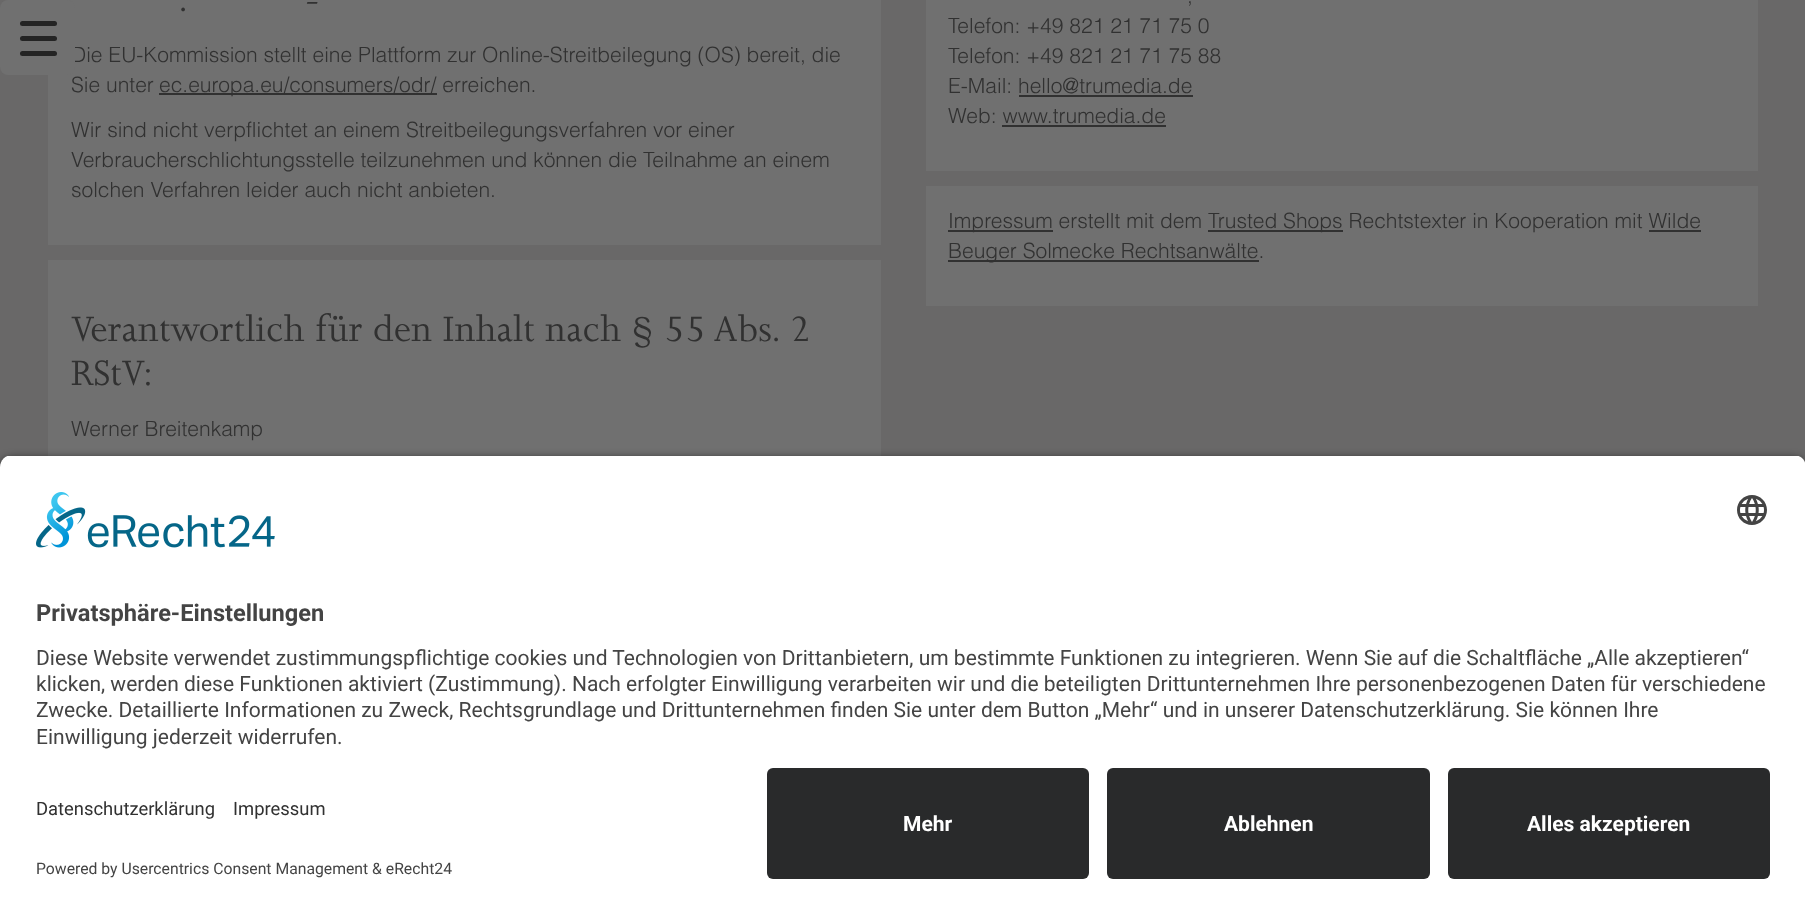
<svg xmlns="http://www.w3.org/2000/svg" xmlns:xlink="http://www.w3.org/1999/xlink" width="1805" height="915" viewBox="0 0 1805 915">
<style>
.cls-1{font:40.5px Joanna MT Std;fill:#313131}
.cls-2{font:300 21px Helvetica;fill:#313131}
.cls-3{font:bold 23.6px Roboto;fill:#444444}
.cls-4{font:21px Roboto;fill:#444444}
.cls-5{font:18.4px Roboto;fill:#313131}
.cls-6{font:15.75px Roboto;fill:#444444}
.cls-7{font:bold 21px Roboto;fill:#ffffff}
</style>
<defs>
<clipPath id="clip1"><path d="M12 455H1794C1800.5 455 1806 460.5 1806 467V756H0V467C0 460.5 5.5 455 12 455Z"/></clipPath>
</defs>
<rect width="100%" height="100%" fill="#696868"/>
<rect fill="#707070" x="48" y="0" width="833" height="245"/>
<rect fill="#313131" x="159" y="93" width="278" height="2"/>
<rect fill="#707070" x="48" y="260" width="833" height="196"/>
<rect fill="#707070" x="926" y="0" width="832" height="171"/>
<rect fill="#313131" x="1019" y="95" width="174" height="2"/>
<rect fill="#313131" x="1002" y="125" width="164" height="2"/>
<rect fill="#707070" x="926" y="186" width="832" height="120"/>
<rect fill="#313131" x="948" y="230" width="105" height="2"/>
<rect fill="#313131" x="1208" y="230" width="135" height="2"/>
<rect fill="#313131" x="1649" y="230" width="52" height="2"/>
<rect fill="#313131" x="948" y="260" width="311" height="2"/>
<rect fill="#000000" fill-opacity="0.8" filter="blur(5px)" x="0" y="459" width="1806" height="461" rx="12"/>
<g clip-path="url(#clip1)">
<rect fill="#ffffff" x="0" y="456" width="1805" height="300"/>
</g>
<image xlink:href="image0.png" x="36" y="492" width="239" height="56"/>
<image xlink:href="image1.png" x="1737" y="495" width="30" height="30"/>
<rect fill="#ffffff" x="0" y="756" width="1805" height="159"/>
<rect fill="#292a2b" x="767" y="768" width="322" height="111" rx="6"/>
<rect fill="#292a2b" x="1107" y="768" width="323" height="111" rx="6"/>
<rect fill="#292a2b" x="1448" y="768" width="322" height="111" rx="6"/>
<text class="cls-1" x="305" y="11">-</text>
<text class="cls-1" x="178" y="11">.</text>
<text class="cls-2" x="71" y="62">Die EU-Kommission stellt eine Plattform zur Online-Streitbeilegung (OS) bereit, die</text>
<rect fill="#707070" x="0" y="0" width="75" height="75" rx="8"/>
<rect fill="#242424" x="20" y="21" width="37" height="5" rx="2.5"/>
<rect fill="#242424" x="20" y="51" width="37" height="5" rx="2.5"/>
<rect fill="#242424" x="20" y="36" width="37" height="5" rx="2.5"/>
<text class="cls-2" x="71" y="92">Sie unter</text>
<text class="cls-2" x="159" y="92">ec.europa.eu/consumers/odr/ erreichen.</text>
<text class="cls-2"><tspan x="71" y="137">Wir sind nicht verpflichtet an einem Streitbeilegungsverfahren vor einer</tspan><tspan x="71" y="167">Verbraucherschlichtungsstelle teilzunehmen und können die Teilnahme an einem</tspan><tspan x="71" y="197">solchen Verfahren leider auch nicht anbieten.</tspan></text>
<text class="cls-1"><tspan x="71" y="341">Verantwortlich für den Inhalt nach § 55 Abs. 2</tspan><tspan x="71" y="385">RStV:</tspan></text>
<text class="cls-2" x="71" y="436">Werner Breitenkamp</text>
<text class="cls-2" x="1187" y="3">,</text>
<text class="cls-2"><tspan x="948" y="33">Telefon: +49 821 21 71 75 0</tspan><tspan x="948" y="63">Telefon: +49 821 21 71 75 88</tspan><tspan x="948" y="93">E-Mail: hello@trumedia.de</tspan><tspan x="948" y="123">Web: www.trumedia.de</tspan></text>
<text class="cls-2" x="948" y="228">Impressum erstellt mit dem</text>
<text class="cls-2" x="1208" y="228">Trusted Shops Rechtstexter in Kooperation mit Wilde</text>
<text class="cls-2" x="948" y="258">Beuger Solmecke Rechtsanwälte.</text>
<text class="cls-3" x="36" y="621">Privatsphäre-Einstellungen</text>
<text class="cls-4"><tspan x="36" y="665">Diese Website verwendet zustimmungspflichtige cookies und Technologien von Drittanbietern, um bestimmte Funktionen zu integrieren. Wenn Sie auf die Schaltfläche „Alle akzeptieren“</tspan><tspan x="36" y="691">klicken, werden diese Funktionen aktiviert (Zustimmung). Nach erfolgter Einwilligung verarbeiten wir und die beteiligten Drittunternehmen Ihre personenbezogenen Daten für verschiedene</tspan><tspan x="36" y="717">Zwecke. Detaillierte Informationen zu Zweck, Rechtsgrundlage und Drittunternehmen finden Sie unter dem Button „Mehr“ und in unserer Datenschutzerklärung. Sie können Ihre</tspan><tspan x="36" y="744">Einwilligung jederzeit widerrufen.</tspan></text>
<text class="cls-5" x="36" y="815">Datenschutzerklärung</text>
<text class="cls-5" x="233" y="815">Impressum</text>
<text class="cls-6" x="36" y="874">Powered by Usercentrics Consent Management &amp; eRecht24</text>
<text class="cls-7" x="903" y="831">Mehr</text>
<text class="cls-7" x="1224" y="831">Ablehnen</text>
<text class="cls-7" x="1527" y="831">Alles akzeptieren</text>
</svg>
